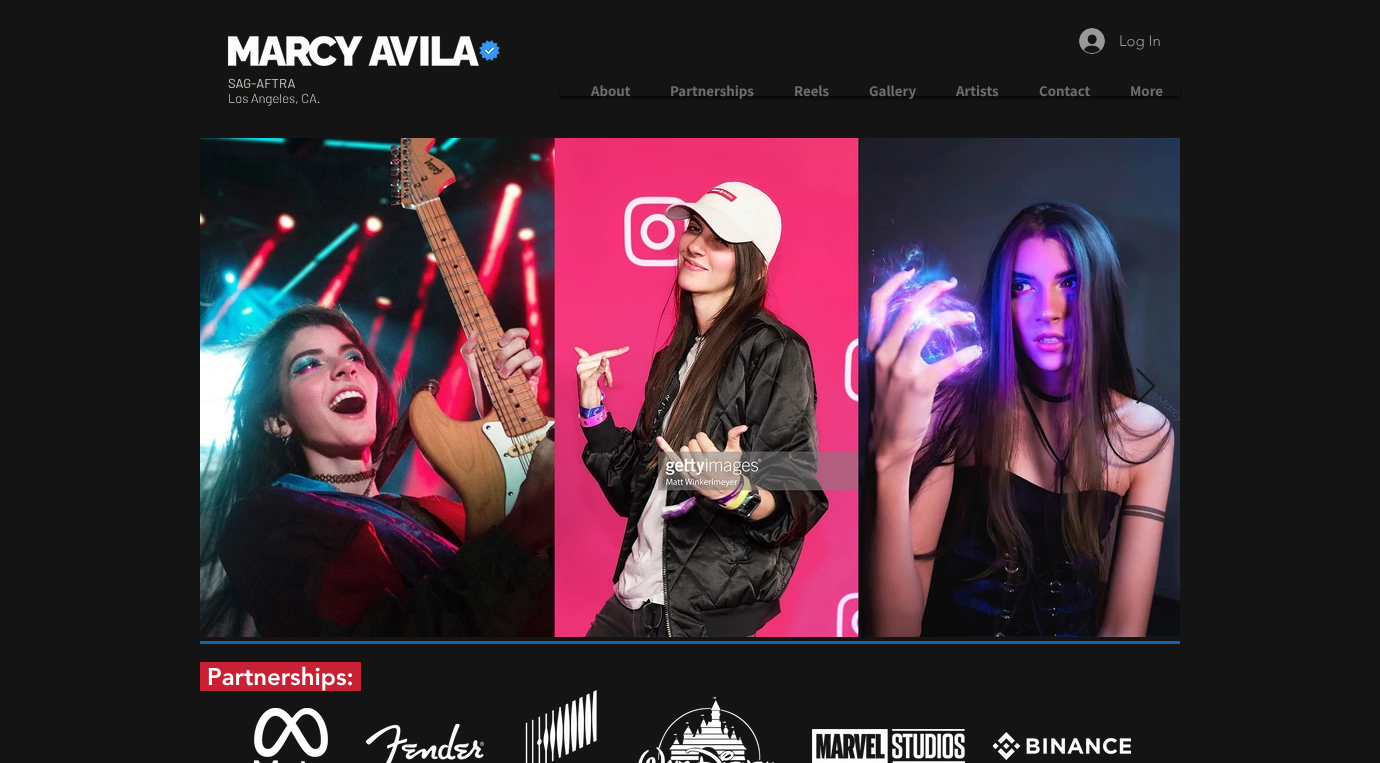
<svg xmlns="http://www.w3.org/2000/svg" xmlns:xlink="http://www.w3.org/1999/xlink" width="1380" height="763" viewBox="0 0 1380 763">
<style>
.cls-1{font:300 15px 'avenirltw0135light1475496';fill:#999999}
.cls-2{font:13px Barlow;fill:#dccdbe}
.cls-3{font:200 13px Barlow;fill:#ffffff}
.cls-4{font:bold 15px Assistant;fill:#6e6d6d}
.cls-5{font:900 24px 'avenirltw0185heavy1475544';fill:#ffffff}
</style>
<defs>
<clipPath id="clip1"><path d="M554 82H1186V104H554ZM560 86H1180V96H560Z" clip-rule="evenodd"/></clipPath>
</defs>
<rect width="100%" height="100%" fill="#141414"/>
<image xlink:href="image0.png" x="228" y="36" width="251" height="30"/>
<image xlink:href="image1.png" x="479" y="40" width="21" height="21"/>
<image xlink:href="image2.png" x="1079" y="28" width="26" height="26"/>
<g clip-path="url(#clip1)">
<rect fill="#000000" fill-opacity="0.7" filter="blur(1.5px)" x="560" y="88" width="620" height="10"/>
</g>
<image xlink:href="image3.png" x="200" y="138" width="980" height="499"/>
<path fill="#141414" fill-opacity="0.9" d="M1136 369.5L1137.5 368L1155.5 386L1137.5 404L1136 402.5L1152.5 386Z"/>
<rect fill="#1267ac" x="200" y="641" width="980" height="3"/>
<rect fill="#c82135" x="200" y="662" width="161" height="29"/>
<image xlink:href="image4.png" x="254" y="708" width="74" height="55"/>
<image xlink:href="image5.png" x="366" y="724" width="118" height="39"/>
<image xlink:href="image6.png" x="525" y="690" width="72" height="73"/>
<image xlink:href="image7.png" x="638" y="697" width="137" height="66"/>
<image xlink:href="image8.png" x="812" y="729" width="153" height="34"/>
<image xlink:href="image9.png" x="993" y="732" width="138" height="28"/>
<text class="cls-1" x="1119" y="46">Log In</text>
<text class="cls-2" x="228" y="88">SAG-AFTRA</text>
<text class="cls-3" x="228" y="103">Los Angeles, CA.</text>
<text class="cls-4" x="591" y="96">About</text>
<text class="cls-4" x="670" y="96">Partnerships</text>
<text class="cls-4" x="794" y="96">Reels</text>
<text class="cls-4" x="869" y="96">Gallery</text>
<text class="cls-4" x="956" y="96">Artists</text>
<text class="cls-4" x="1039" y="96">Contact</text>
<text class="cls-4" x="1130" y="96">More</text>
<text class="cls-5" x="207" y="685">Partnerships:</text>
</svg>
